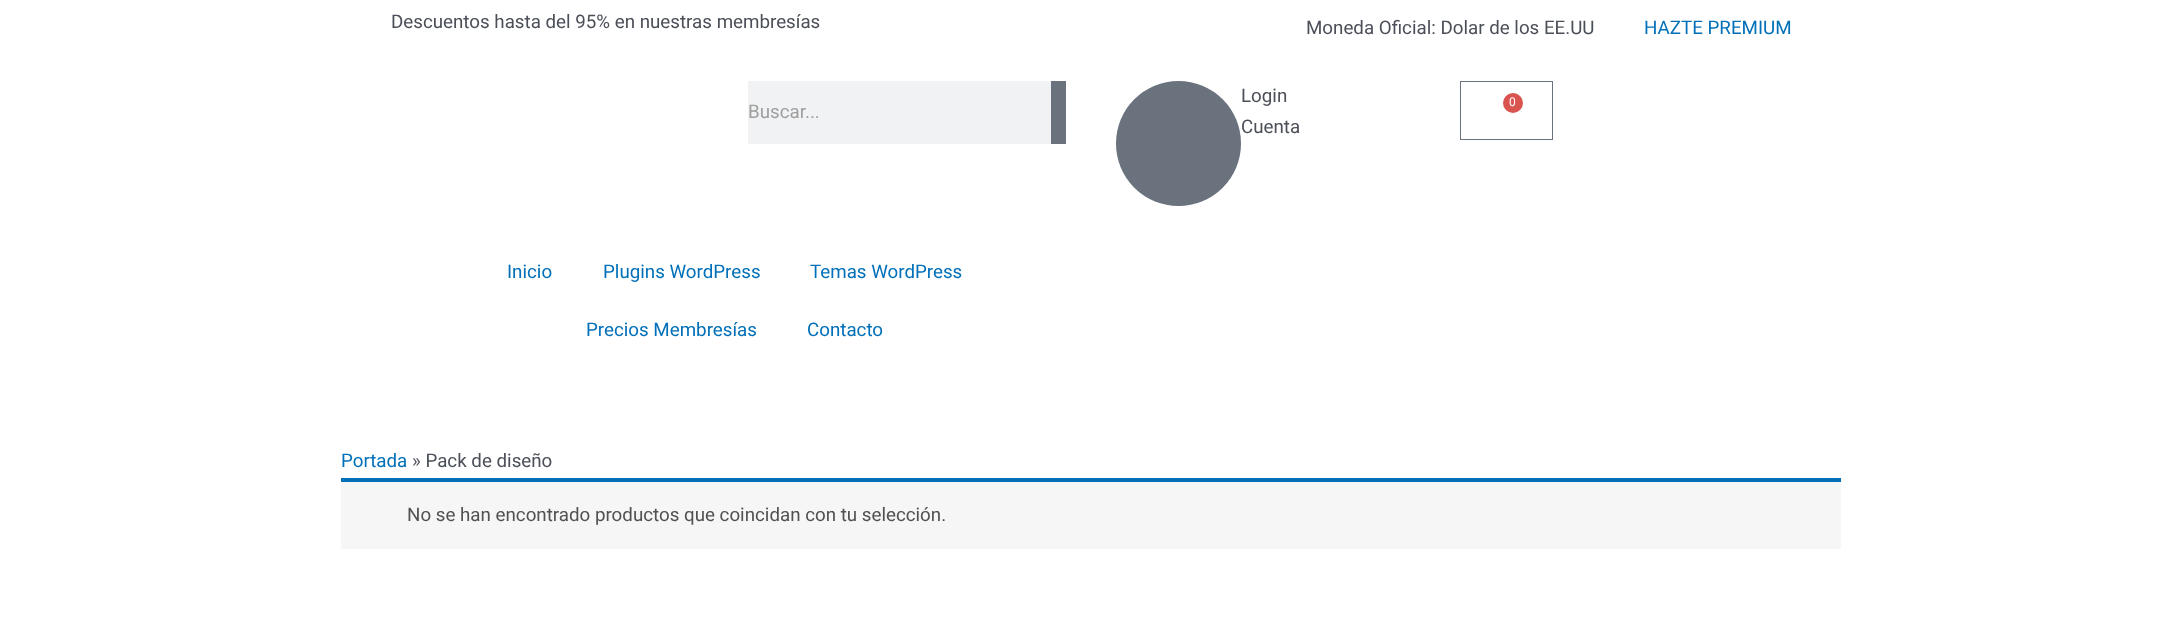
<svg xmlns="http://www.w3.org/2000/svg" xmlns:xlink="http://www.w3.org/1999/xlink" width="2182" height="621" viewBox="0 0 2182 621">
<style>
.cls-1{font:18.75px Roboto;fill:#4b4f58}
.cls-2{font:18.75px Roboto;fill:#0170b9}
.cls-3{font:18.75px Roboto;fill:#9e9e9e}
.cls-4{font:12px Roboto;fill:#ffffff}
.cls-5{font:18.75px Roboto;fill:#515151}
</style>
<rect width="100%" height="100%" fill="#ffffff"/>
<rect fill="#f1f2f3" x="748" y="81" width="303" height="63"/>
<rect fill="#69727d" x="1051" y="81" width="15" height="63"/>
<circle fill="#69727d" cx="1178.5" cy="143.5" r="62.5"/>
<rect fill="none" stroke="#69727d" x="1460.5" y="81.5" width="92" height="58"/>
<circle fill="#d9534f" cx="1513" cy="103" r="10"/>
<rect fill="#f7f6f7" x="341" y="482" width="1500" height="67"/>
<rect fill="#0170b9" x="341" y="478" width="1500" height="4"/>
<text class="cls-1" x="391" y="28">Descuentos hasta del 95% en nuestras membresías</text>
<text class="cls-1" x="1306" y="34">Moneda Oficial: Dolar de los EE.UU</text>
<text class="cls-2" x="1644" y="34">HAZTE PREMIUM</text>
<text class="cls-3" x="748" y="118">Buscar...</text>
<text class="cls-1"><tspan x="1241" y="102">Login</tspan><tspan x="1241" y="133">Cuenta</tspan></text>
<text class="cls-4" x="1509" y="106">0</text>
<text class="cls-2" x="507" y="278">Inicio</text>
<text class="cls-2" x="603" y="278">Plugins WordPress</text>
<text class="cls-2" x="810" y="278">Temas WordPress</text>
<text class="cls-2" x="586" y="336">Precios Membresías</text>
<text class="cls-2" x="807" y="336">Contacto</text>
<text class="cls-2" x="341" y="467">Portada</text>
<text class="cls-1" x="412" y="467">» Pack de diseño</text>
<text class="cls-5" x="407" y="521">No se han encontrado productos que coincidan con tu selección.</text>
</svg>
